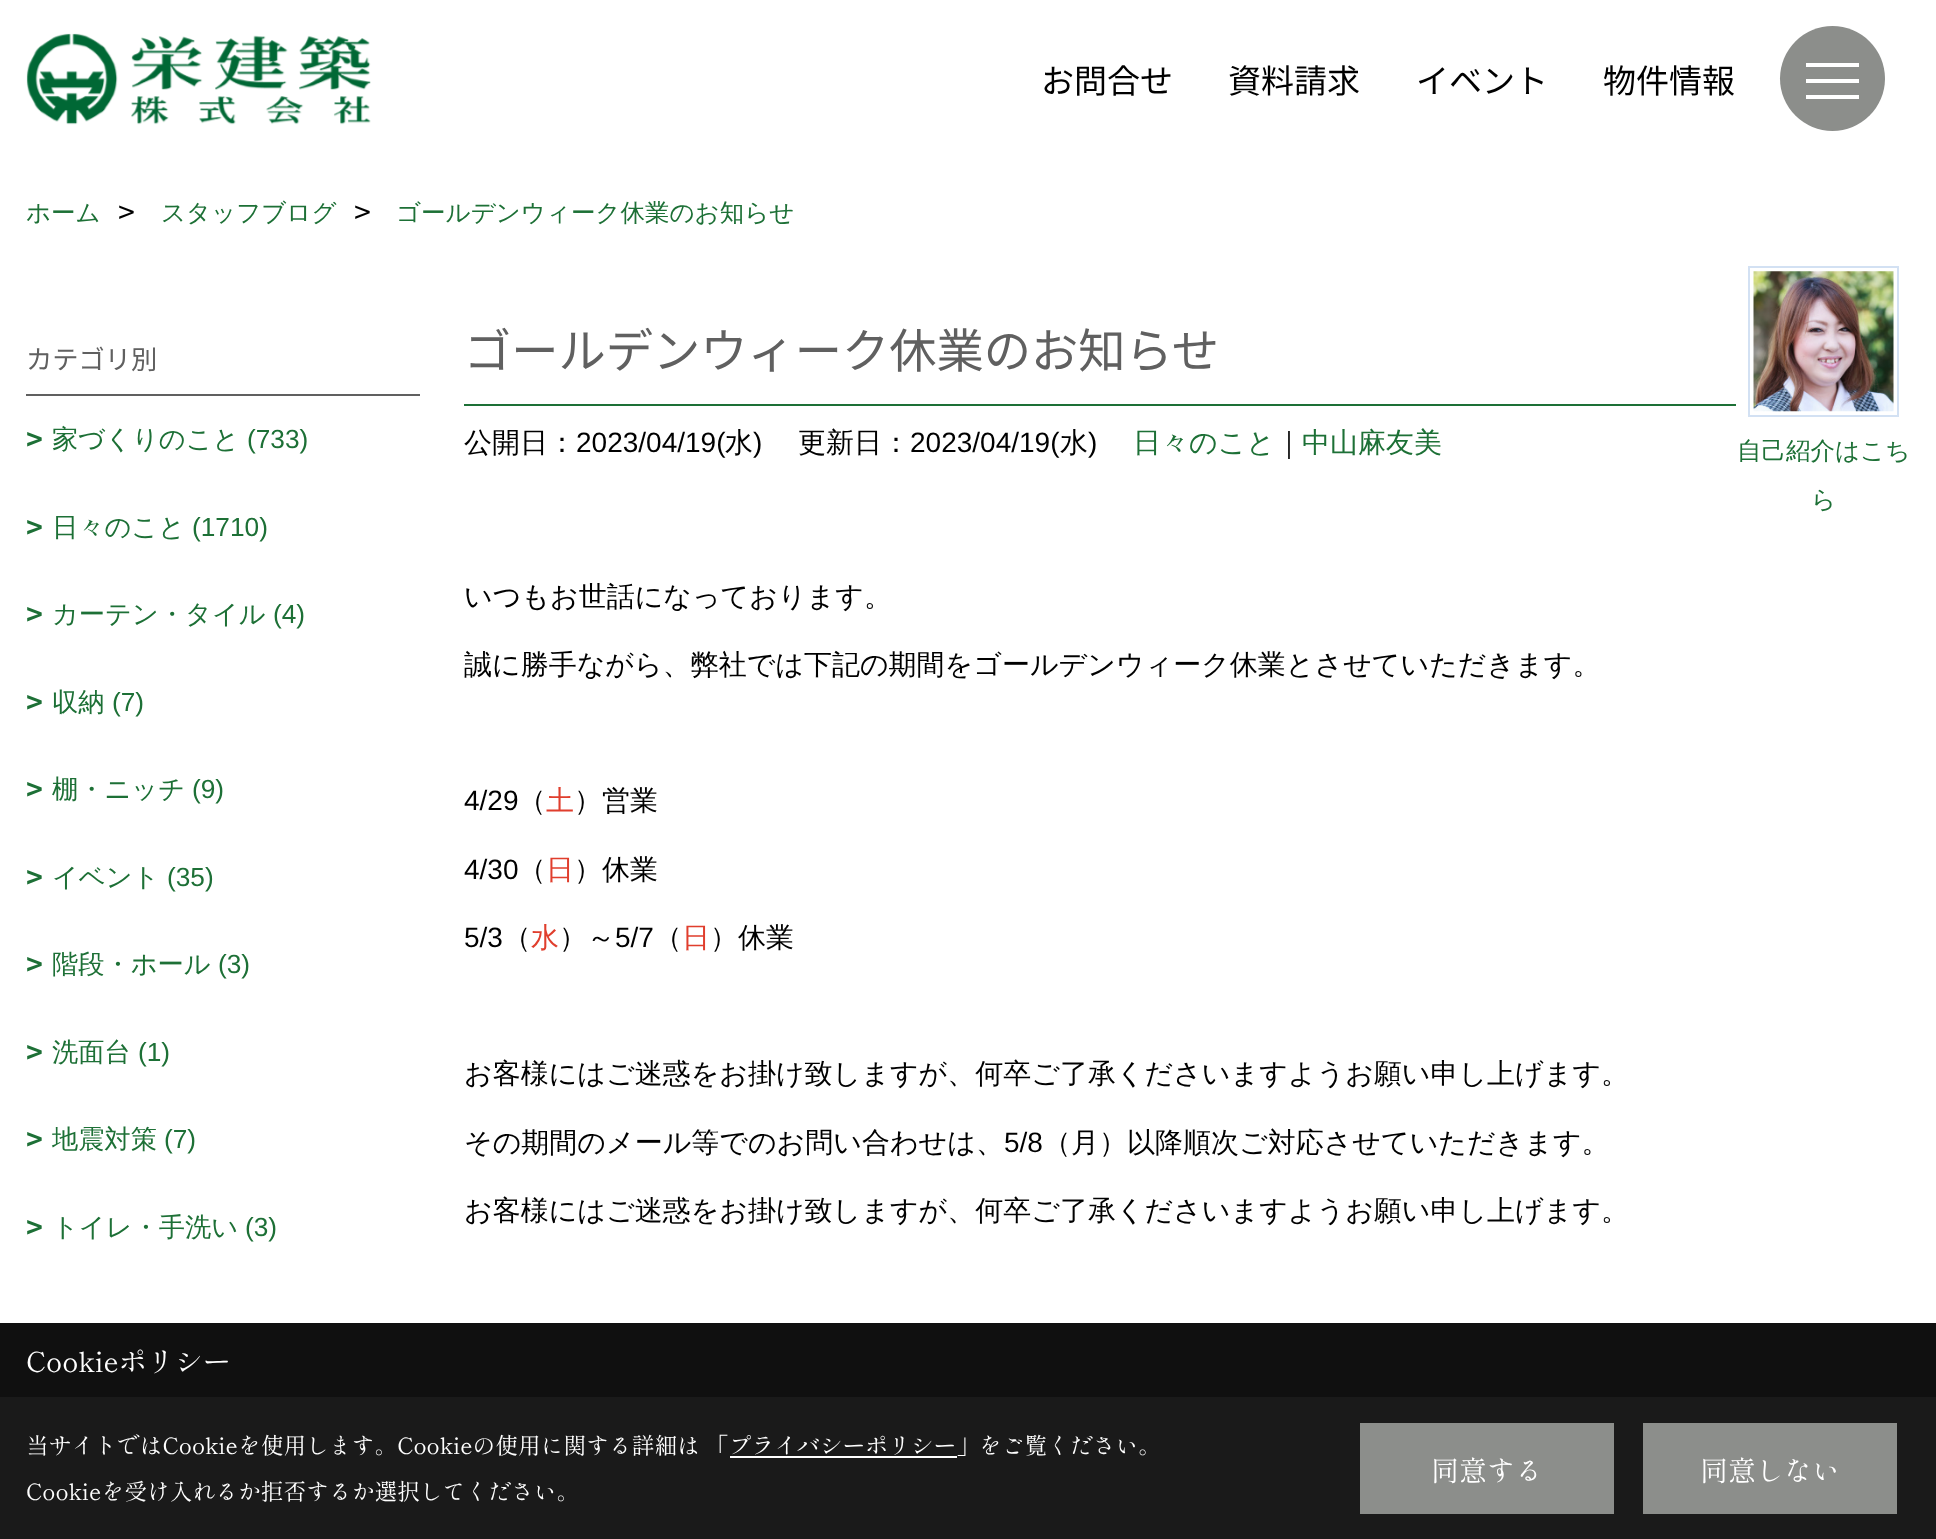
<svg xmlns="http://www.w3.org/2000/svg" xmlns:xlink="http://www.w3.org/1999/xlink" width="1936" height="1539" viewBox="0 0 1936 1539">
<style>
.cls-1{font:100 33px Noto Sans JP;fill:#000000}
.cls-2{font:500 24.5px WenQuanYi Zen Hei;fill:#1d7036}
.cls-3{font:28px DejaVu Sans Mono;fill:#000000}
.cls-4{font:100 26.25px Noto Sans JP;fill:#606060}
.cls-5{font:bold 28px DejaVu Sans Mono;fill:#1d7036}
.cls-6{font:500 26.25px WenQuanYi Zen Hei;fill:#1d7036}
.cls-7{font:26.25px Liberation Sans;fill:#1d7036}
.cls-8{font:100 47.25px Noto Sans JP;fill:#606060}
.cls-9{font:500 28px WenQuanYi Zen Hei;fill:#000000}
.cls-10{font:28px Liberation Sans;fill:#000000}
.cls-11{font:500 28px WenQuanYi Zen Hei;fill:#1d7036}
.cls-12{font:500 28px WenQuanYi Zen Hei;fill:#e03e2d}
.cls-13{font:28px Shippori Mincho;fill:#ffffff}
.cls-14{font:22.75px Shippori Mincho;fill:#ffffff}
</style>
<rect width="100%" height="100%" fill="#ffffff"/>
<image xlink:href="image0.png" x="26" y="33" width="345" height="92"/>
<circle fill="#8c8e8b" cx="1832.5" cy="78.5" r="52.5"/>
<rect fill="#ffffff" x="1806" y="63" width="53" height="4"/>
<rect fill="#ffffff" x="1806" y="79" width="53" height="4"/>
<rect fill="#ffffff" x="1806" y="95" width="53" height="4"/>
<rect fill="#606060" x="26" y="394" width="394" height="2"/>
<rect fill="#1d7036" x="464" y="404" width="1272" height="2"/>
<rect fill="none" stroke="#d3e1f3" stroke-width="2" x="1749" y="267" width="149" height="149"/>
<image xlink:href="image1.png" x="1753" y="271" width="141" height="141"/>
<rect fill="#101010" x="0" y="1323" width="1936" height="74"/>
<rect fill="#1a1a1a" x="0" y="1397" width="1936" height="142"/>
<rect fill="#ffffff" x="730" y="1456" width="227" height="2"/>
<rect fill="#8c8e8b" x="1360" y="1423" width="254" height="91"/>
<rect fill="#8c8e8b" x="1643" y="1423" width="254" height="91"/>
<text class="cls-1" x="1041" y="93">お問合せ</text>
<text class="cls-1" x="1228" y="93">資料請求</text>
<text class="cls-1" x="1416" y="93">イベント</text>
<text class="cls-1" x="1603" y="93">物件情報</text>
<text class="cls-2" x="26" y="221">ホーム</text>
<text class="cls-3" x="118" y="221">&gt;</text>
<text class="cls-2" x="161" y="221">スタッフブログ</text>
<text class="cls-3" x="354" y="221">&gt;</text>
<text class="cls-2" x="396" y="221">ゴールデンウィーク休業のお知らせ</text>
<text class="cls-4" x="26" y="369">カテゴリ別</text>
<text class="cls-5" x="26" y="448">&gt;</text>
<text class="cls-6" x="52" y="448">家づくりのこと</text>
<text class="cls-7" x="247" y="448">(733)</text>
<text class="cls-5" x="26" y="536">&gt;</text>
<text class="cls-6" x="52" y="536">日々のこと</text>
<text class="cls-7" x="192" y="536">(1710)</text>
<text class="cls-5" x="26" y="623">&gt;</text>
<text class="cls-6" x="52" y="623">カーテン・タイル</text>
<text class="cls-7" x="273" y="623">(4)</text>
<text class="cls-5" x="26" y="711">&gt;</text>
<text class="cls-6" x="52" y="711">収納</text>
<text class="cls-7" x="112" y="711">(7)</text>
<text class="cls-5" x="26" y="798">&gt;</text>
<text class="cls-6" x="52" y="798">棚・ニッチ</text>
<text class="cls-7" x="192" y="798">(9)</text>
<text class="cls-5" x="26" y="886">&gt;</text>
<text class="cls-6" x="52" y="886">イベント</text>
<text class="cls-7" x="167" y="886">(35)</text>
<text class="cls-5" x="26" y="973">&gt;</text>
<text class="cls-6" x="52" y="973">階段・ホール</text>
<text class="cls-7" x="218" y="973">(3)</text>
<text class="cls-5" x="26" y="1061">&gt;</text>
<text class="cls-6" x="52" y="1061">洗面台</text>
<text class="cls-7" x="138" y="1061">(1)</text>
<text class="cls-5" x="26" y="1148">&gt;</text>
<text class="cls-6" x="52" y="1148">地震対策</text>
<text class="cls-7" x="164" y="1148">(7)</text>
<text class="cls-5" x="26" y="1236">&gt;</text>
<text class="cls-6" x="52" y="1236">トイレ・手洗い</text>
<text class="cls-7" x="245" y="1236">(3)</text>
<text class="cls-8" x="464" y="368">ゴールデンウィーク休業のお知らせ</text>
<text class="cls-9" x="464" y="452">公開日：</text>
<text class="cls-10" x="576" y="452">2023/04/19(</text>
<text class="cls-9" x="725" y="452">水</text>
<text class="cls-10" x="753" y="452">)</text>
<text class="cls-9" x="798" y="452">更新日：</text>
<text class="cls-10" x="910" y="452">2023/04/19(</text>
<text class="cls-9" x="1060" y="452">水</text>
<text class="cls-10" x="1088" y="452">)</text>
<text class="cls-11" x="1133" y="452">日々のこと</text>
<text class="cls-9" x="1275" y="452">｜</text>
<text class="cls-11" x="1302" y="452">中山麻友美</text>
<text class="cls-2" x="1737" y="459">自己紹介はこち</text>
<text class="cls-2" x="1811" y="508">ら</text>
<text class="cls-9" x="464" y="606">いつもお世話になっております。</text>
<text class="cls-9" x="464" y="674">誠に勝手ながら、弊社では下記の期間をゴールデンウィーク休業とさせていただきます。</text>
<text class="cls-10" x="464" y="810">4/29</text>
<text class="cls-9" x="518" y="810">（</text>
<text class="cls-12" x="546" y="810">土</text>
<text class="cls-9" x="574" y="810">）営業</text>
<text class="cls-10" x="464" y="879">4/30</text>
<text class="cls-9" x="518" y="879">（</text>
<text class="cls-12" x="546" y="879">日</text>
<text class="cls-9" x="574" y="879">）休業</text>
<text class="cls-10" x="464" y="947">5/3</text>
<text class="cls-9" x="503" y="947">（</text>
<text class="cls-12" x="531" y="947">水</text>
<text class="cls-9" x="559" y="947">）～</text>
<text class="cls-10" x="615" y="947">5/7</text>
<text class="cls-9" x="654" y="947">（</text>
<text class="cls-12" x="682" y="947">日</text>
<text class="cls-9" x="710" y="947">）休業</text>
<text class="cls-9" x="464" y="1083">お客様にはご迷惑をお掛け致しますが、何卒ご了承くださいますようお願い申し上げます。</text>
<text class="cls-9" x="464" y="1152">その期間のメール等でのお問い合わせは、</text>
<text class="cls-10" x="1004" y="1152">5/8</text>
<text class="cls-9" x="1043" y="1152">（月）以降順次ご対応させていただきます。</text>
<text class="cls-9" x="464" y="1220">お客様にはご迷惑をお掛け致しますが、何卒ご了承くださいますようお願い申し上げます。</text>
<text class="cls-13" x="26" y="1372">Cookieポリシー</text>
<text class="cls-14" x="26" y="1454">当サイトではCookieを使用します。Cookieの使用に関する詳細は 「プライバシーポリシー」をご覧ください。</text>
<text class="cls-14" x="26" y="1500">Cookieを受け入れるか拒否するか選択してください。</text>
<text class="cls-13" x="1431" y="1481">同意する</text>
<text class="cls-13" x="1700" y="1481">同意しない</text>
</svg>
